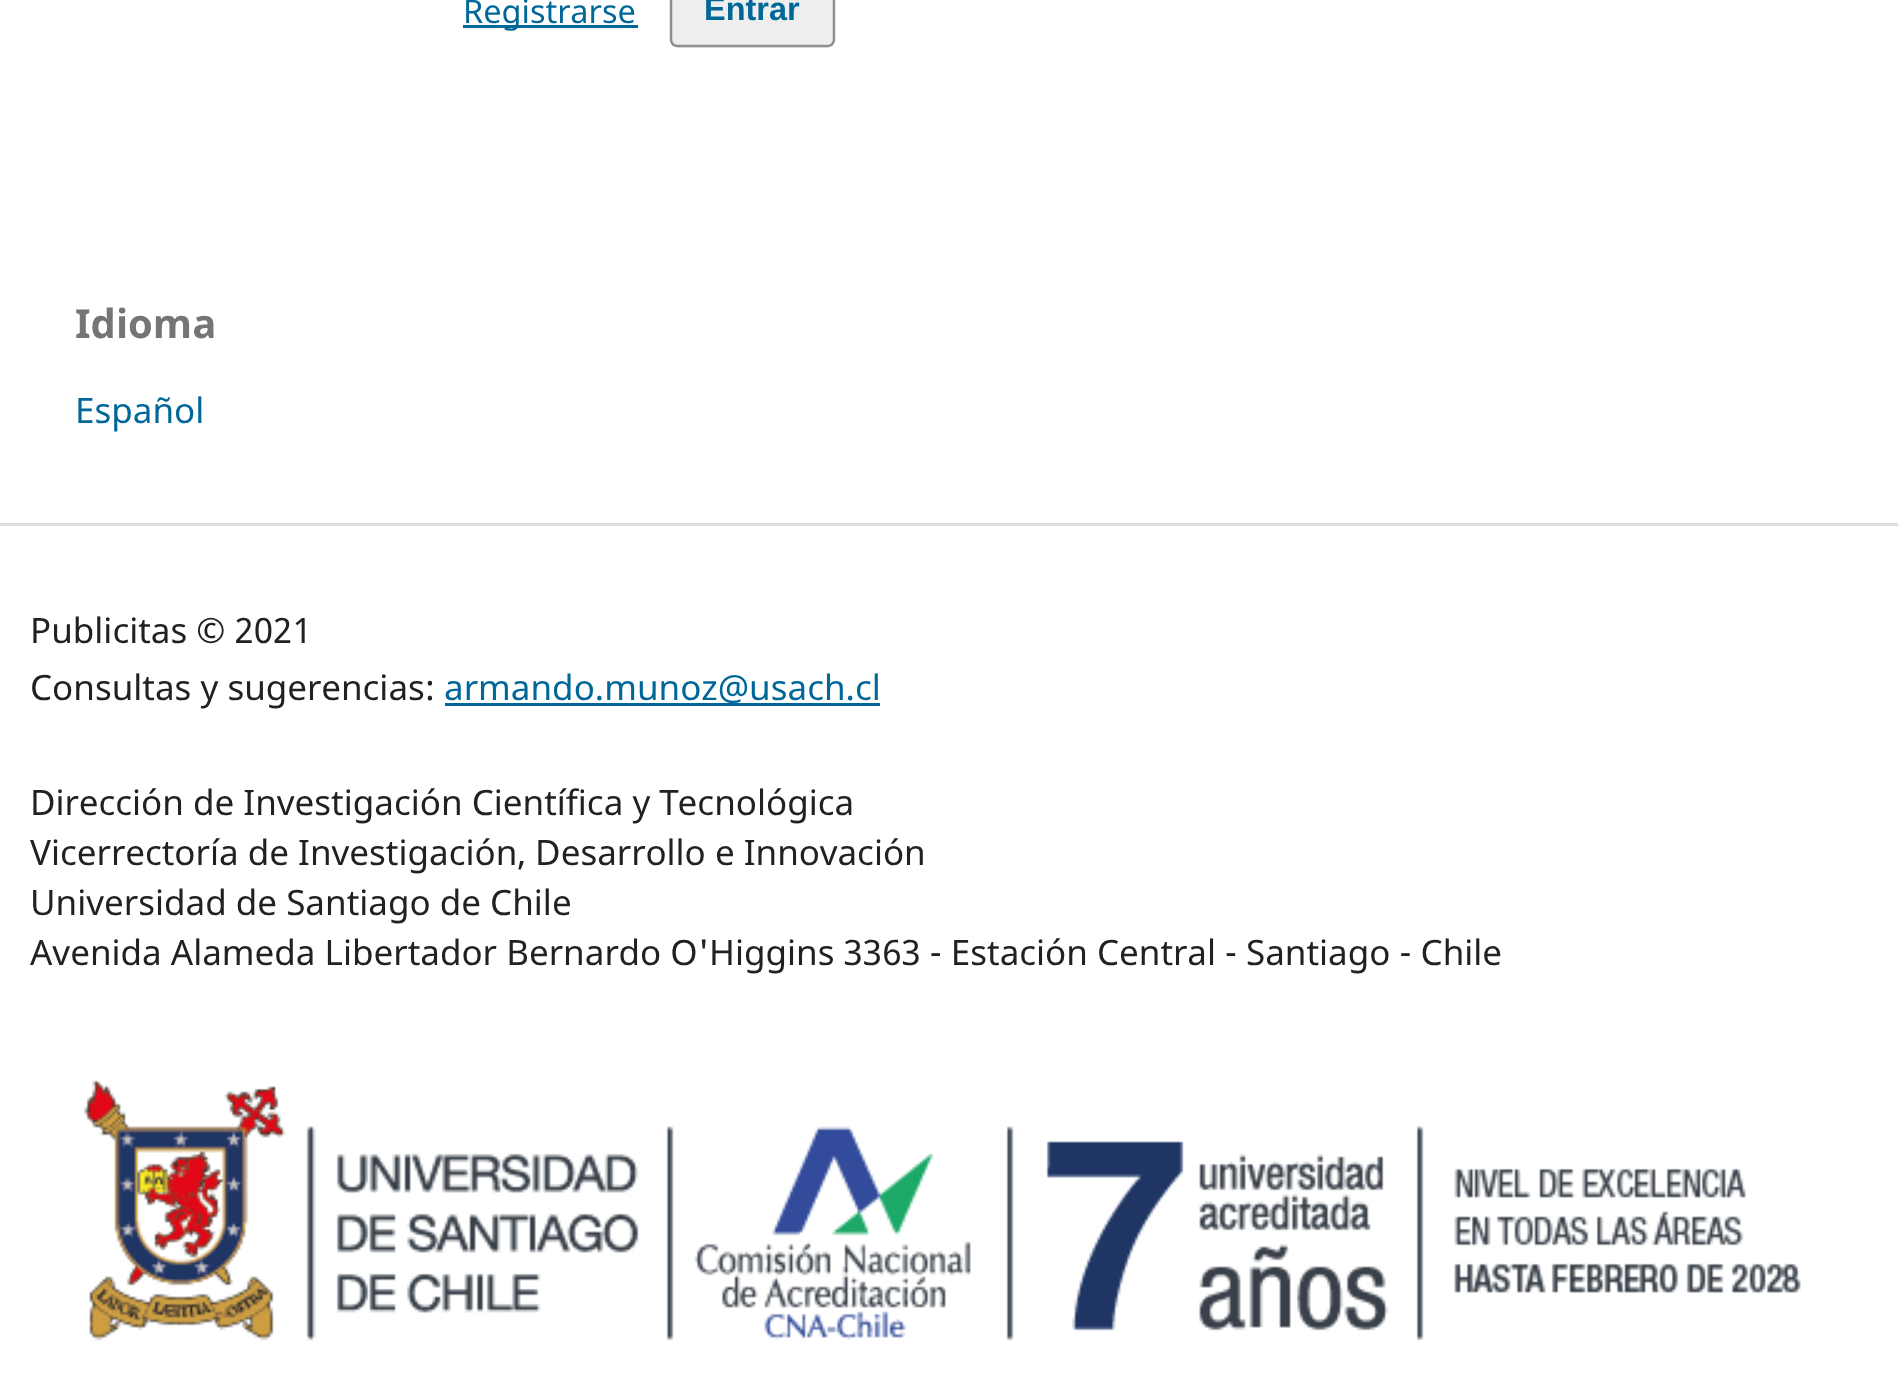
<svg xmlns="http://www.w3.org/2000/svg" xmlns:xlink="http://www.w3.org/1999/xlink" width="1898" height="1396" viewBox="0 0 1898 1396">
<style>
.cls-1{font:32.5px Noto Sans;fill:#006798}
.cls-2{font:bold 32.5px Liberation Sans;fill:#006798}
.cls-3{font:bold 40px Noto Sans;fill:#757575}
.cls-4{font:35px Noto Sans;fill:#006798}
.cls-5{font:35px Noto Sans;fill:#212121}
</style>
<rect width="100%" height="100%" fill="#ffffff"/>
<rect fill="#006798" x="463" y="25" width="175" height="3"/>
<rect fill="#eeeeee" x="670" y="-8" width="165" height="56" rx="8"/>
<path fill="none" stroke="#000000" stroke-opacity="0.4" stroke-width="2.5" d="M832-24.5C833-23 834-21.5 834-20V40C834 41.5 833 43 832 44.5C830.5 45.5 829 46 827.5 46H677.5C676 46 674.5 45.5 673 44.5C672 43 671 41.5 671 40V-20C671-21.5 672-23 673-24.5"/>
<rect fill="#dddddd" x="0" y="523" width="1898" height="3"/>
<rect fill="#006798" x="445" y="703" width="435" height="3"/>
<image xlink:href="image0.png" x="84" y="1079" width="1717" height="262"/>
<text class="cls-1" x="463" y="23">Registrarse</text>
<text class="cls-2" x="704" y="20">Entrar</text>
<text class="cls-3" x="75" y="338">Idioma</text>
<text class="cls-4" x="75" y="423">Español</text>
<text class="cls-5"><tspan x="30" y="643">Publicitas © 2021</tspan><tspan x="30" y="700">Consultas y sugerencias:</tspan></text>
<text class="cls-4" x="444" y="700">armando.munoz@usach.cl</text>
<text class="cls-5"><tspan x="30" y="815">Dirección de Investigación Científica y Tecnológica</tspan><tspan x="30" y="865">Vicerrectoría de Investigación, Desarrollo e Innovación</tspan><tspan x="30" y="915">Universidad de Santiago de Chile</tspan><tspan x="30" y="965">Avenida Alameda Libertador Bernardo O'Higgins 3363 - Estación Central - Santiago - Chile</tspan></text>
</svg>
